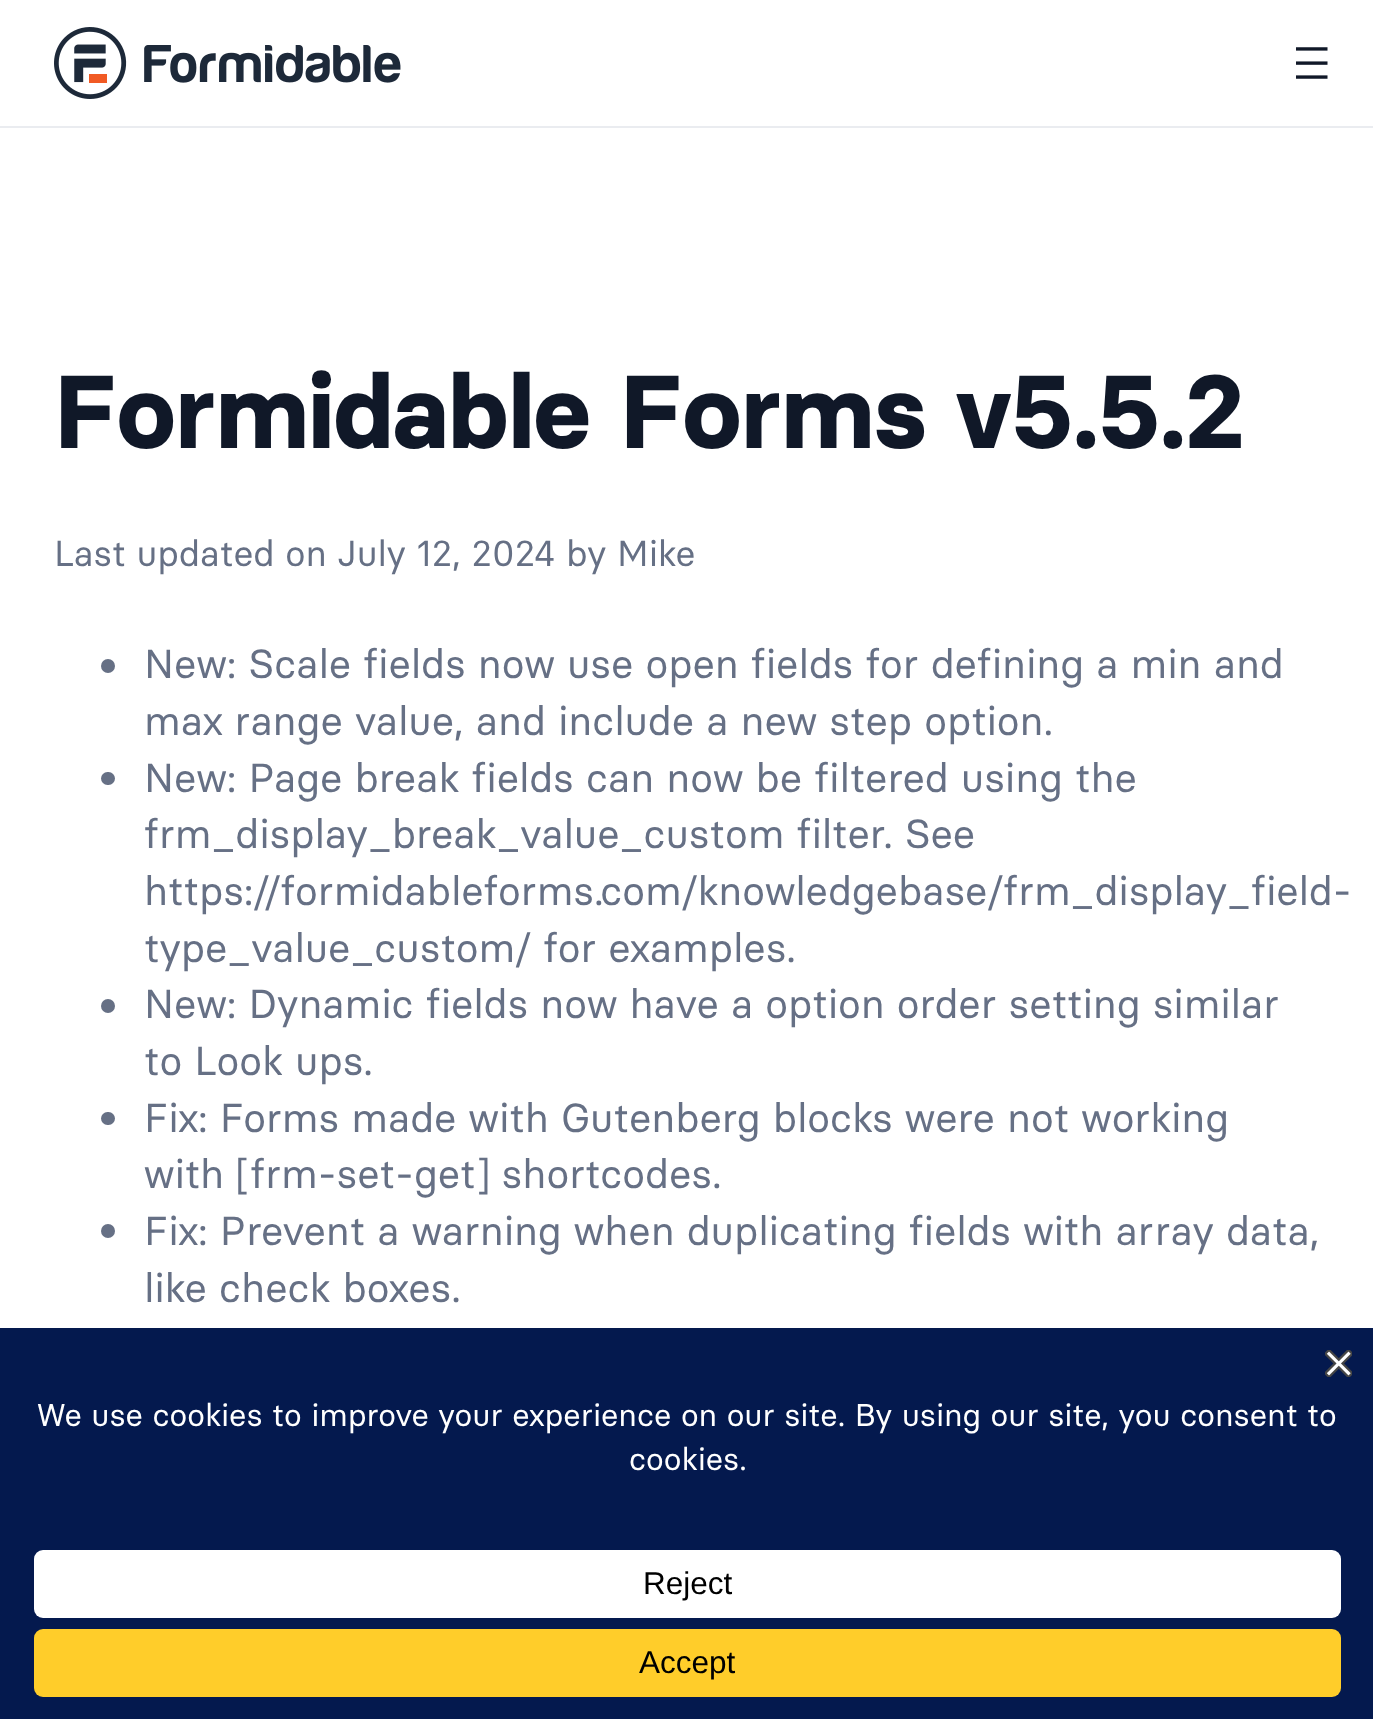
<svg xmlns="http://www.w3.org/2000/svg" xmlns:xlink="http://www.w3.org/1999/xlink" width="1373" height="1719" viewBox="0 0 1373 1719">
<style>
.cls-1{font:bold 103.1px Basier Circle;fill:#101828}
.cls-2{font:36px Basier Circle;fill:#667085}
.cls-3{font:40.5px Basier Circle;fill:#667085}
.cls-4{font:31.5px Basier Circle;fill:#ffffff}
.cls-5{font:31.5px Liberation Sans;fill:#000000}
</style>
<rect width="100%" height="100%" fill="#ffffff"/>
<rect fill="#eaecf0" x="0" y="126" width="1373" height="2"/>
<image xlink:href="image0.png" x="54" y="27" width="347" height="72"/>
<image xlink:href="image1.png" x="1296" y="47" width="32" height="32"/>
<circle fill="#667085" cx="108" cy="666" r="7"/>
<rect fill="#667085" x="101" y="772" width="14" height="13" rx="6.5"/>
<circle fill="#667085" cx="108" cy="1006" r="7"/>
<rect fill="#667085" x="101" y="1112" width="14" height="13" rx="6.5"/>
<circle fill="#667085" cx="108" cy="1231" r="7"/>
<rect fill="#04194e" x="0" y="1328" width="1373" height="391"/>
<image xlink:href="image2.png" x="1325" y="1350" width="27" height="27"/>
<rect fill="#ffffff" x="34" y="1550" width="1307" height="68" rx="9"/>
<rect fill="#ffcd2a" x="34" y="1629" width="1307" height="68" rx="9"/>
<text class="cls-1" x="54" y="448">Formidable Forms v5.5.2</text>
<text class="cls-2" x="54" y="566">Last updated on July 12, 2024 by Mike</text>
<text class="cls-3"><tspan x="144" y="678">New: Scale fields now use open fields for defining a min and</tspan><tspan x="144" y="735">max range value, and include a new step option.</tspan><tspan x="144" y="792">New: Page break fields can now be filtered using the</tspan><tspan x="144" y="848">frm_display_break_value_custom filter. See</tspan><tspan x="144" y="905">https://formidableforms.com/knowledgebase/frm_display_field-</tspan><tspan x="144" y="962">type_value_custom/ for examples.</tspan><tspan x="144" y="1018">New: Dynamic fields now have a option order setting similar</tspan><tspan x="144" y="1075">to Look ups.</tspan><tspan x="144" y="1132">Fix: Forms made with Gutenberg blocks were not working</tspan><tspan x="144" y="1188">with [frm-set-get] shortcodes.</tspan><tspan x="144" y="1245">Fix: Prevent a warning when duplicating fields with array data,</tspan><tspan x="144" y="1302">like check boxes.</tspan></text>
<text class="cls-4" x="37" y="1426">We use cookies to improve your experience on our site. By using our site, you consent to</text>
<text class="cls-4" x="629" y="1470">cookies.</text>
<text class="cls-5" x="643" y="1594">Reject</text>
<text class="cls-5" x="639" y="1673">Accept</text>
</svg>
